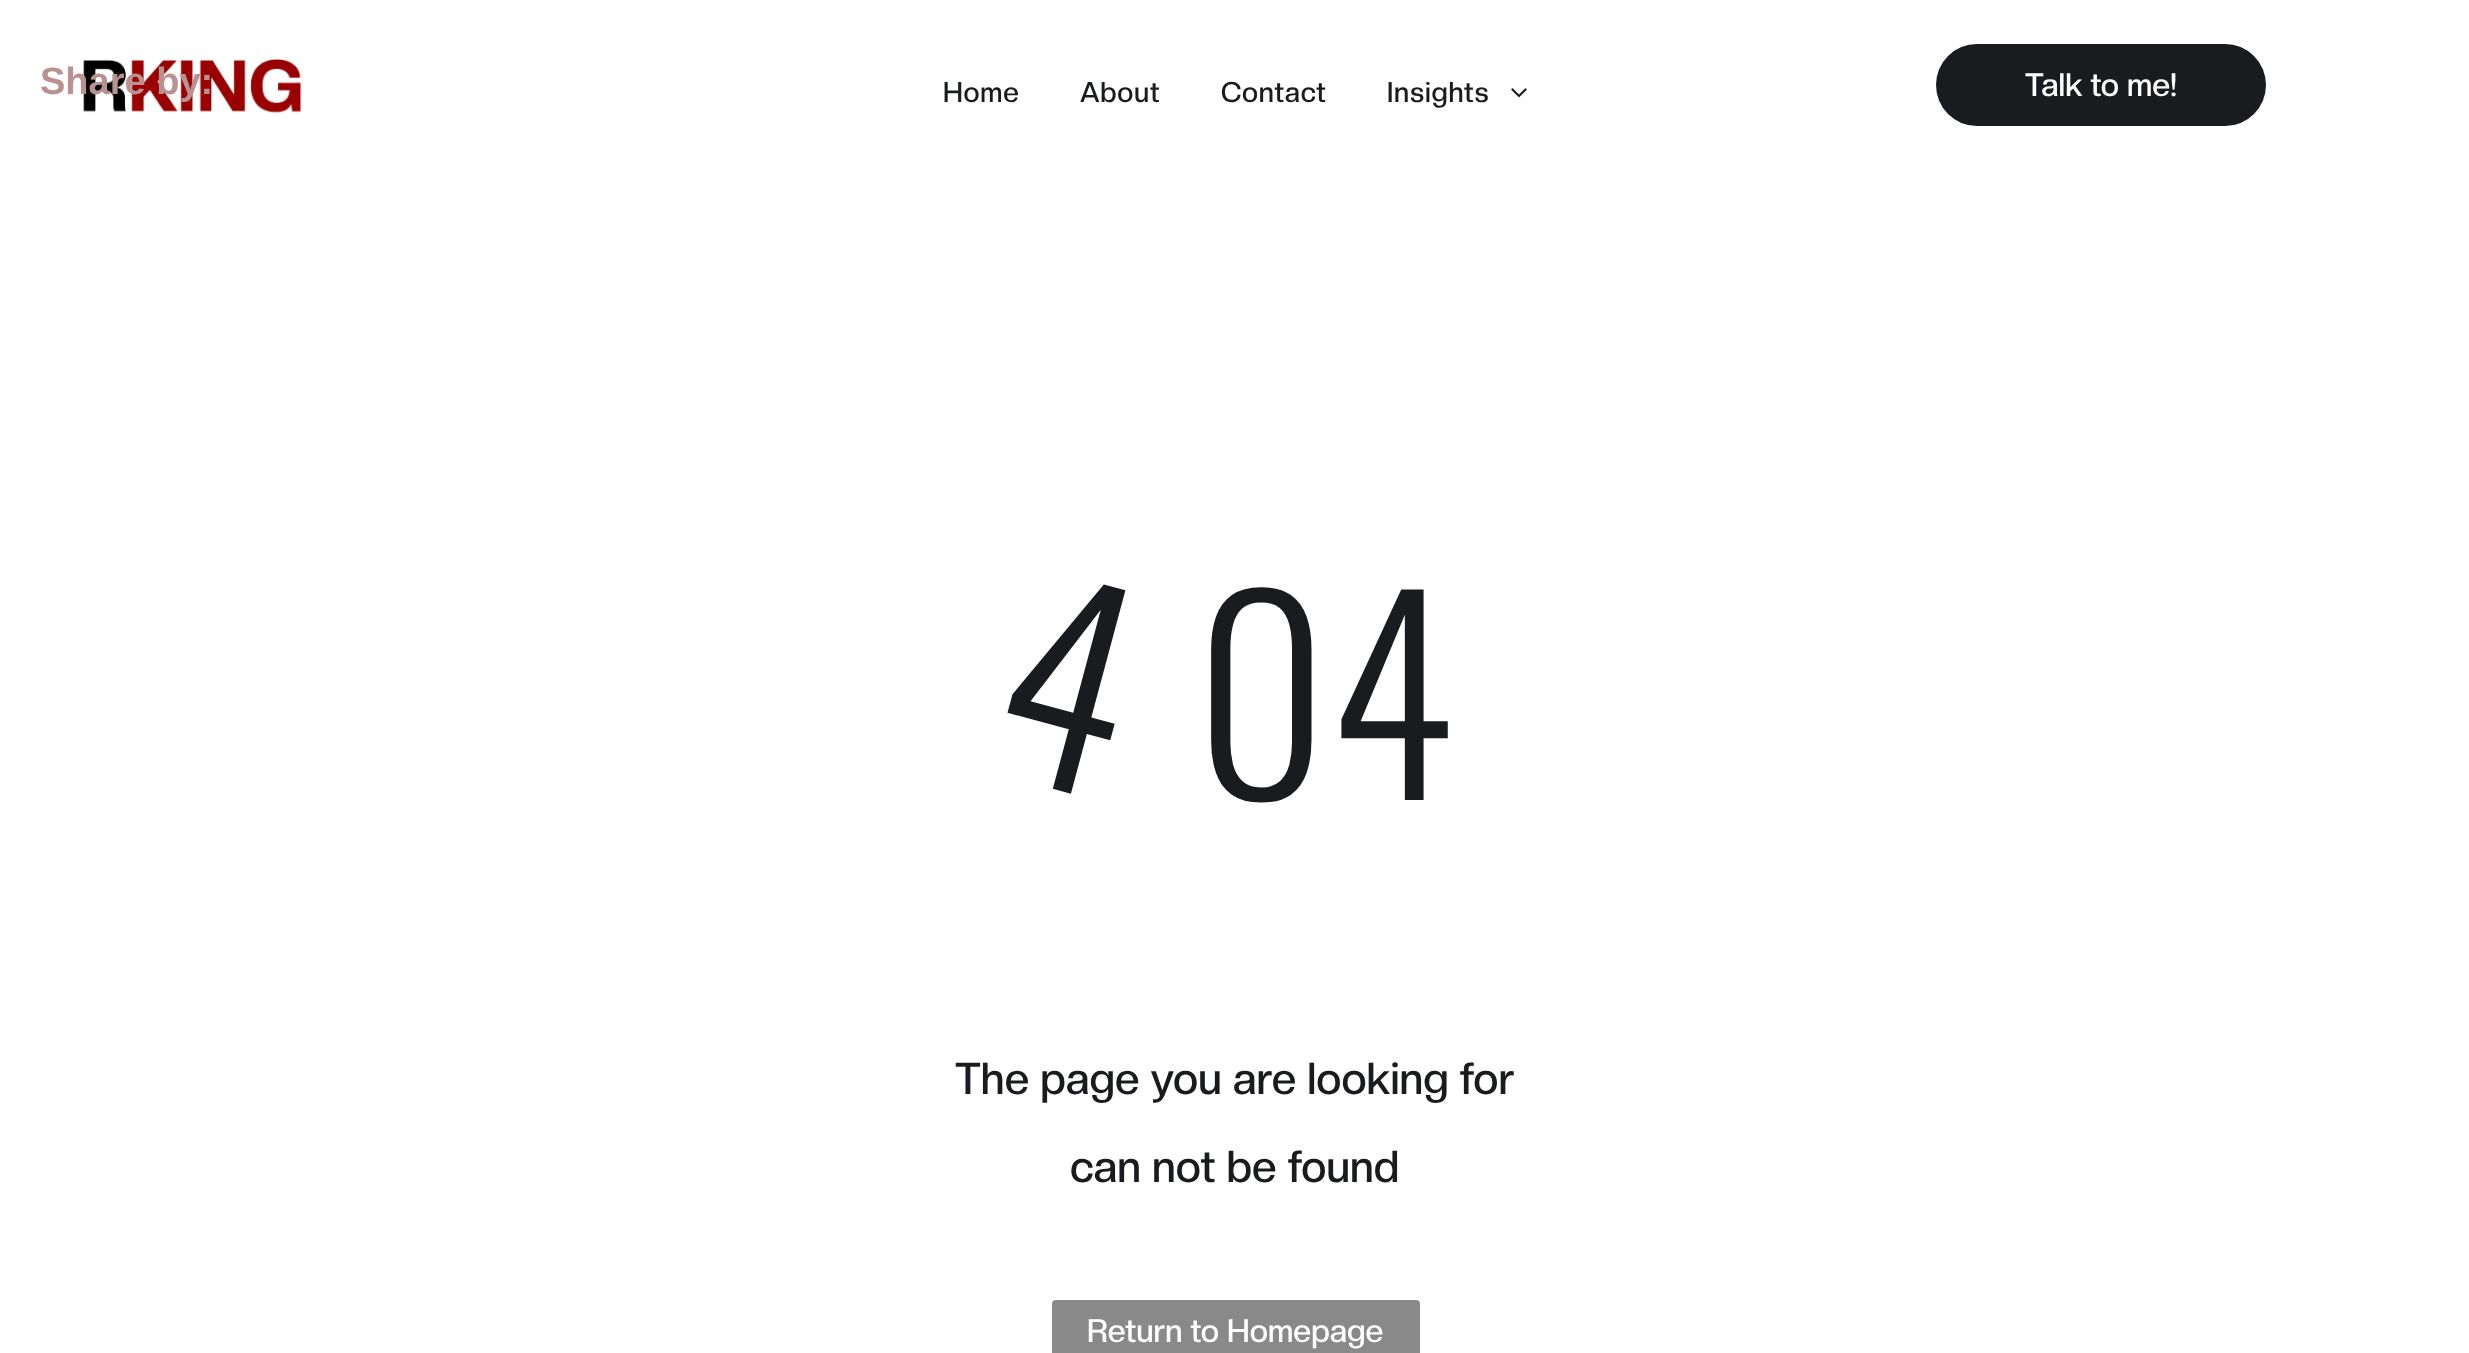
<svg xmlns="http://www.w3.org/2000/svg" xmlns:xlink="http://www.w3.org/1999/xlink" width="2469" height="1353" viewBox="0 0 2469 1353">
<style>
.cls-1{font:bold 38px Liberation Sans;fill:#b99191}
.cls-2{font:500 28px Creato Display;letter-spacing:0.75px;fill:#1a1b1f}
.cls-3{font:500 32px Creato Display;fill:#ffffff}
.cls-4{font:300 260px Oswald;fill:#1a1b1f}
.cls-5{font:500 44px Creato Display;fill:#1a1b1f}
</style>
<rect width="100%" height="100%" fill="#ffffff"/>
<image xlink:href="image0.png" x="83" y="59" width="219" height="54"/>
<image xlink:href="image1.png" x="1511" y="88" width="16" height="10"/>
<rect fill="#1a1b1f" x="1936" y="44" width="330" height="82" rx="41"/>
<rect fill="#898989" x="1052" y="1300" width="368" height="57" rx="4"/>
<text class="cls-1" x="40" y="94">Share by:</text>
<text class="cls-2" x="943" y="102">Home</text>
<text class="cls-2" x="1080" y="102">About</text>
<text class="cls-2" x="1221" y="102">Contact</text>
<text class="cls-2" x="1387" y="102">Insights</text>
<text class="cls-3" x="2025" y="96">Talk to me!</text>
<text class="cls-4" x="979" y="769" transform="rotate(15 979 769)">4</text>
<text class="cls-4" x="1194" y="800">04</text>
<text class="cls-5" x="955" y="1094">The page you are looking for</text>
<text class="cls-5" x="1070" y="1182">can not be found</text>
<text class="cls-3" x="1087" y="1342">Return to Homepage</text>
</svg>
